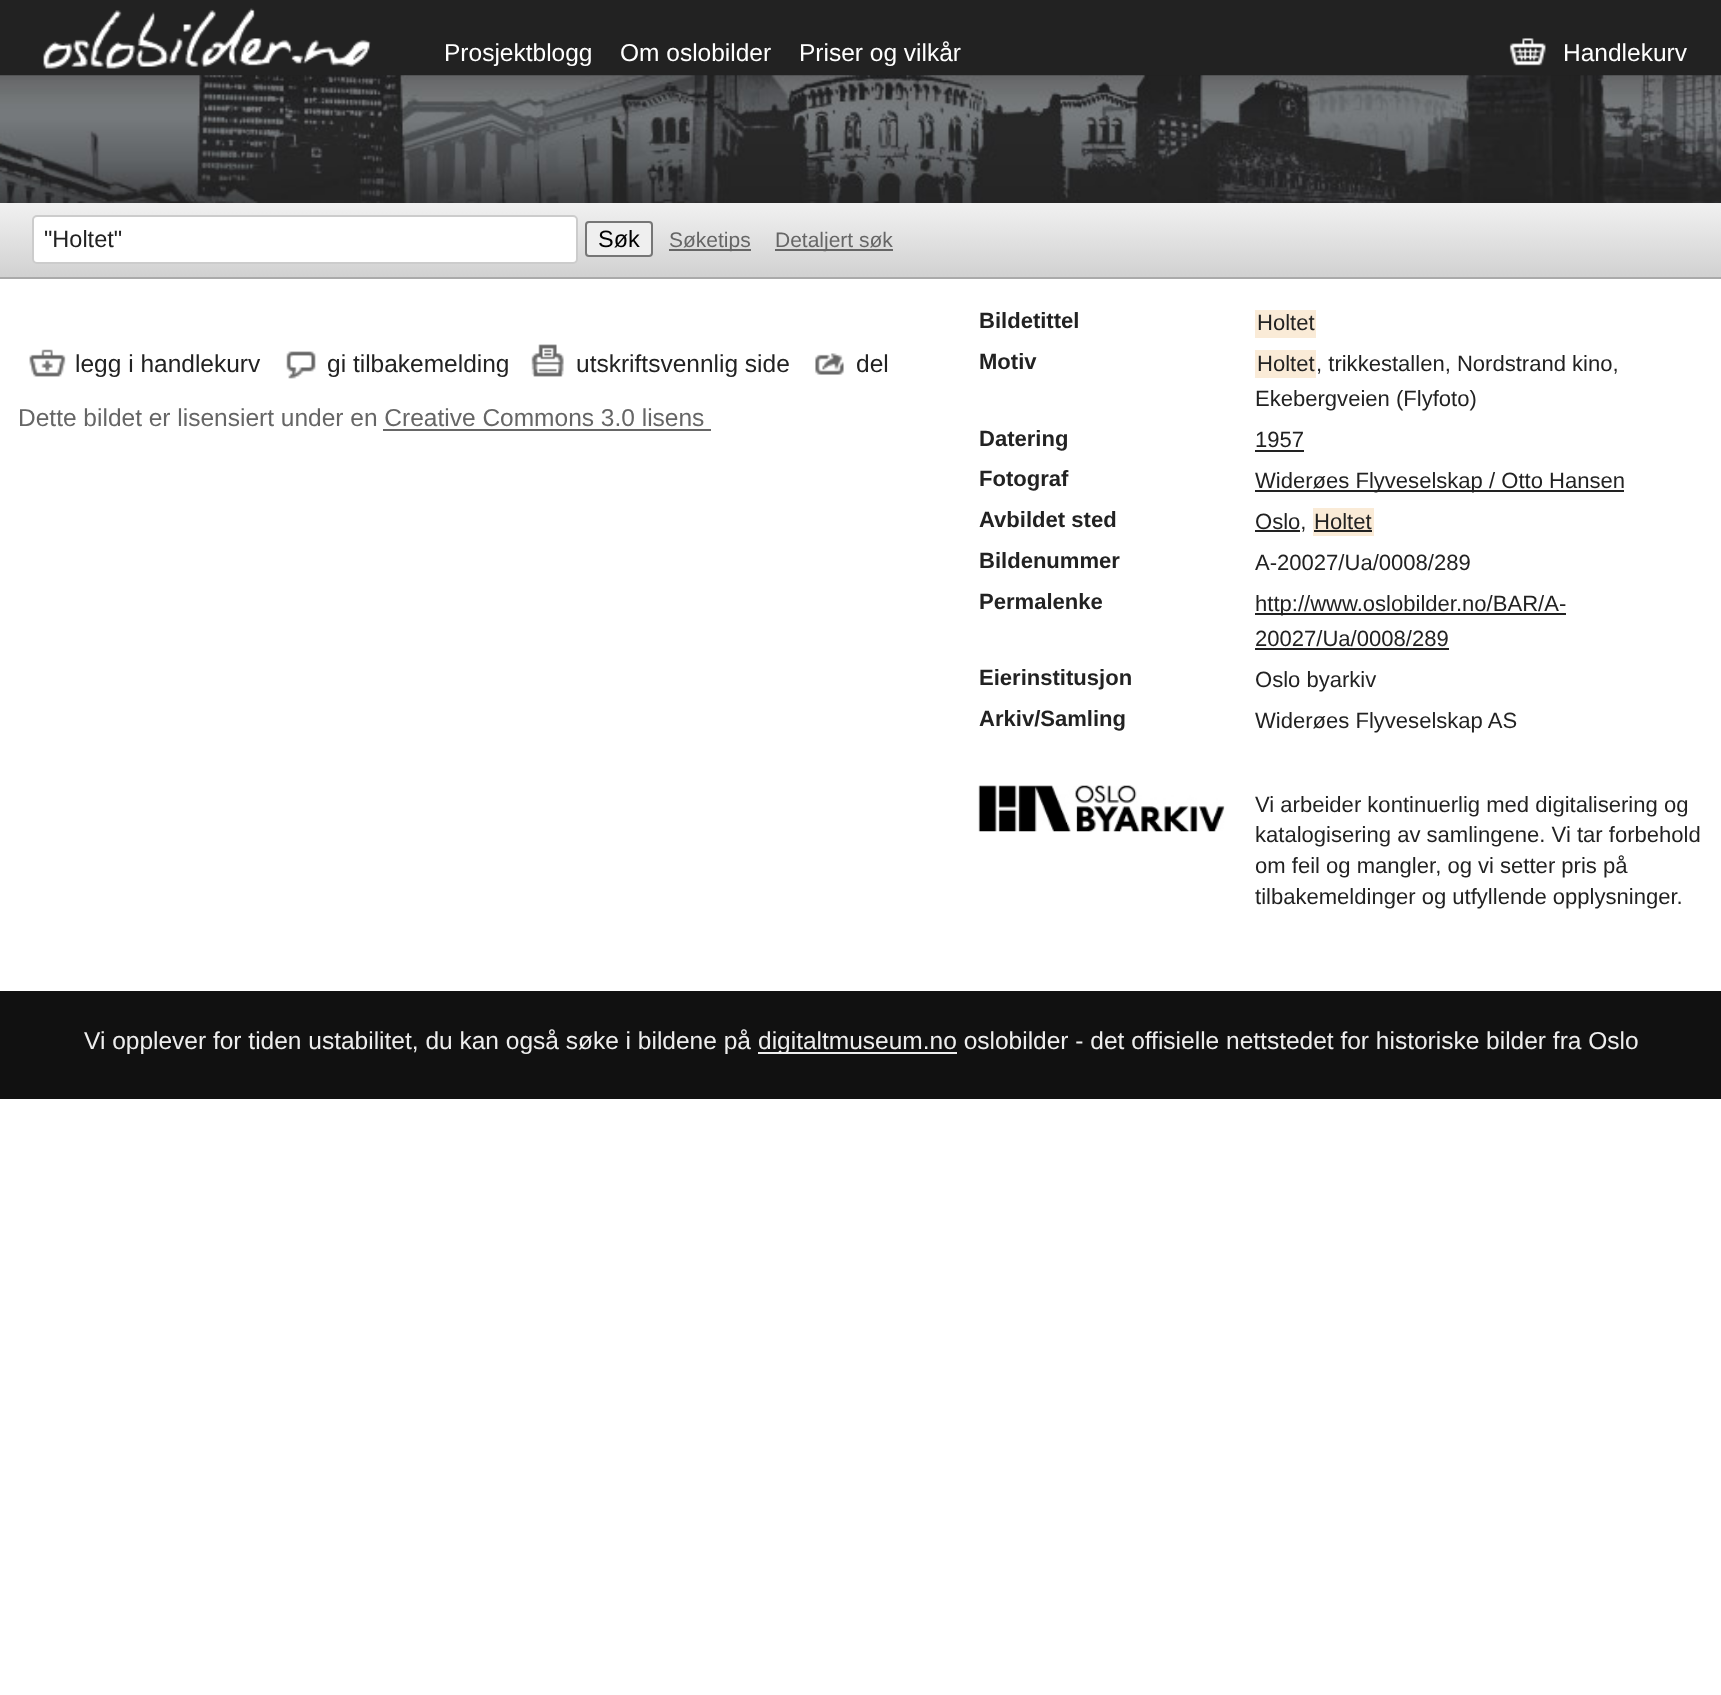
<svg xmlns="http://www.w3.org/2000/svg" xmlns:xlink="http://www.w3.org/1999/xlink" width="1721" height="1695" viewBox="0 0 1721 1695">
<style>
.cls-1{font:24.5px Liberation Sans;fill:#ffffff}
.cls-2{font:23.5px Liberation Sans;fill:#222222}
.cls-3{font:23.5px Liberation Sans;fill:#000000}
.cls-4{font:21px Liberation Sans;fill:#666666}
.cls-5{font:24.5px Liberation Sans;fill:#222222}
.cls-6{font:24.5px Liberation Sans;fill:#666666}
.cls-7{font:bold 22.05px Liberation Sans;fill:#222222}
.cls-8{font:22.05px Liberation Sans;fill:#222222}
.cls-9{font:24.5px Liberation Sans;fill:#eeeeee}
</style>
<defs>
<linearGradient id="g1" gradientUnits="userSpaceOnUse" x1="861" y1="203" x2="861" y2="277"><stop offset="0" stop-color="#f1f1f1"/><stop offset="1" stop-color="#d1d1d1"/></linearGradient>
</defs>
<rect width="100%" height="100%" fill="#ffffff"/>
<rect fill="#222222" x="0" y="0" width="1721" height="76"/>
<image xlink:href="image0.png" x="0" y="75" width="1721" height="128"/>
<image xlink:href="image1.png" x="43" y="8" width="328" height="61"/>
<image xlink:href="image2.png" x="1509" y="38" width="37" height="28"/>
<rect fill="url(#g1)" x="0" y="203" width="1721" height="74"/>
<rect fill="#aaaaaa" x="0" y="277" width="1721" height="2"/>
<rect fill="#ffffff" stroke="#cccccc" stroke-width="2" x="33" y="216" width="544" height="47" rx="4"/>
<rect fill="#efefef" stroke="#767676" stroke-width="2" x="586" y="222" width="66" height="34" rx="3"/>
<rect fill="#666666" x="669" y="249" width="82" height="2"/>
<rect fill="#666666" x="775" y="249" width="118" height="2"/>
<image xlink:href="image3.png" x="29" y="349" width="37" height="28"/>
<image xlink:href="image4.png" x="286" y="351" width="30" height="28"/>
<image xlink:href="image5.png" x="531" y="344" width="33" height="33"/>
<image xlink:href="image6.png" x="815" y="353" width="29" height="22"/>
<rect fill="#666666" x="383" y="429" width="328" height="2"/>
<rect fill="#faebd7" x="1255" y="310" width="61" height="28"/>
<rect fill="#faebd7" x="1255" y="350" width="61" height="28"/>
<rect fill="#222222" x="1255" y="450" width="49" height="2"/>
<rect fill="#222222" x="1255" y="490" width="369" height="2"/>
<rect fill="#222222" x="1255" y="530" width="45" height="2"/>
<rect fill="#faebd7" x="1313" y="508" width="61" height="28"/>
<rect fill="#222222" x="1314" y="530" width="58" height="2"/>
<rect fill="#222222" x="1255" y="613" width="311" height="2"/>
<rect fill="#222222" x="1255" y="648" width="194" height="2"/>
<image xlink:href="image7.png" x="978" y="785" width="247" height="47"/>
<rect fill="#111111" x="0" y="991" width="1721" height="108"/>
<rect fill="#eeeeee" x="758" y="1052" width="199" height="2"/>
<text class="cls-1" x="444" y="61">Prosjektblogg</text>
<text class="cls-1" x="620" y="61">Om oslobilder</text>
<text class="cls-1" x="799" y="61">Priser og vilkår</text>
<text class="cls-1" x="1563" y="61">Handlekurv</text>
<text class="cls-2" x="44" y="247">"Holtet"</text>
<text class="cls-3" x="598" y="247">Søk</text>
<text class="cls-4" x="669" y="247">Søketips</text>
<text class="cls-4" x="775" y="247">Detaljert søk</text>
<text class="cls-5" x="75" y="372">legg i handlekurv</text>
<text class="cls-5" x="327" y="372">gi tilbakemelding</text>
<text class="cls-5" x="576" y="372">utskriftsvennlig side</text>
<text class="cls-5" x="856" y="372">del</text>
<text class="cls-6" x="18" y="426">Dette bildet er lisensiert under en Creative Commons 3.0 lisens</text>
<text class="cls-7" x="979" y="328">Bildetittel</text>
<text class="cls-8" x="1257" y="330">Holtet</text>
<text class="cls-7" x="979" y="369">Motiv</text>
<text class="cls-8" x="1257" y="371">Holtet</text>
<text class="cls-8" x="1316" y="371">, trikkestallen, Nordstrand kino,</text>
<text class="cls-8" x="1255" y="406">Ekebergveien (Flyfoto)</text>
<text class="cls-7" x="979" y="446">Datering</text>
<text class="cls-8" x="1255" y="447">1957</text>
<text class="cls-7" x="979" y="486">Fotograf</text>
<text class="cls-8" x="1255" y="488">Widerøes Flyveselskap / Otto Hansen</text>
<text class="cls-7" x="979" y="527">Avbildet sted</text>
<text class="cls-8" x="1255" y="529">Oslo,</text>
<text class="cls-8" x="1314" y="529">Holtet</text>
<text class="cls-7" x="979" y="568">Bildenummer</text>
<text class="cls-8" x="1255" y="570">A-20027/Ua/0008/289</text>
<text class="cls-7" x="979" y="609">Permalenke</text>
<text class="cls-8"><tspan x="1255" y="611">http://www.oslobilder.no/BAR/A-</tspan><tspan x="1255" y="646">20027/Ua/0008/289</tspan></text>
<text class="cls-7" x="979" y="685">Eierinstitusjon</text>
<text class="cls-8" x="1255" y="687">Oslo byarkiv</text>
<text class="cls-7" x="979" y="726">Arkiv/Samling</text>
<text class="cls-8" x="1255" y="728">Widerøes Flyveselskap AS</text>
<text class="cls-8"><tspan x="1255" y="812">Vi arbeider kontinuerlig med digitalisering og</tspan><tspan x="1255" y="842">katalogisering av samlingene. Vi tar forbehold</tspan><tspan x="1255" y="873">om feil og mangler, og vi setter pris på</tspan><tspan x="1255" y="904">tilbakemeldinger og utfyllende opplysninger.</tspan></text>
<text class="cls-9" x="84" y="1049">Vi opplever for tiden ustabilitet, du kan også søke i bildene på</text>
<text class="cls-9" x="758" y="1049">digitaltmuseum.no oslobilder - det offisielle nettstedet for historiske bilder fra Oslo</text>
</svg>
